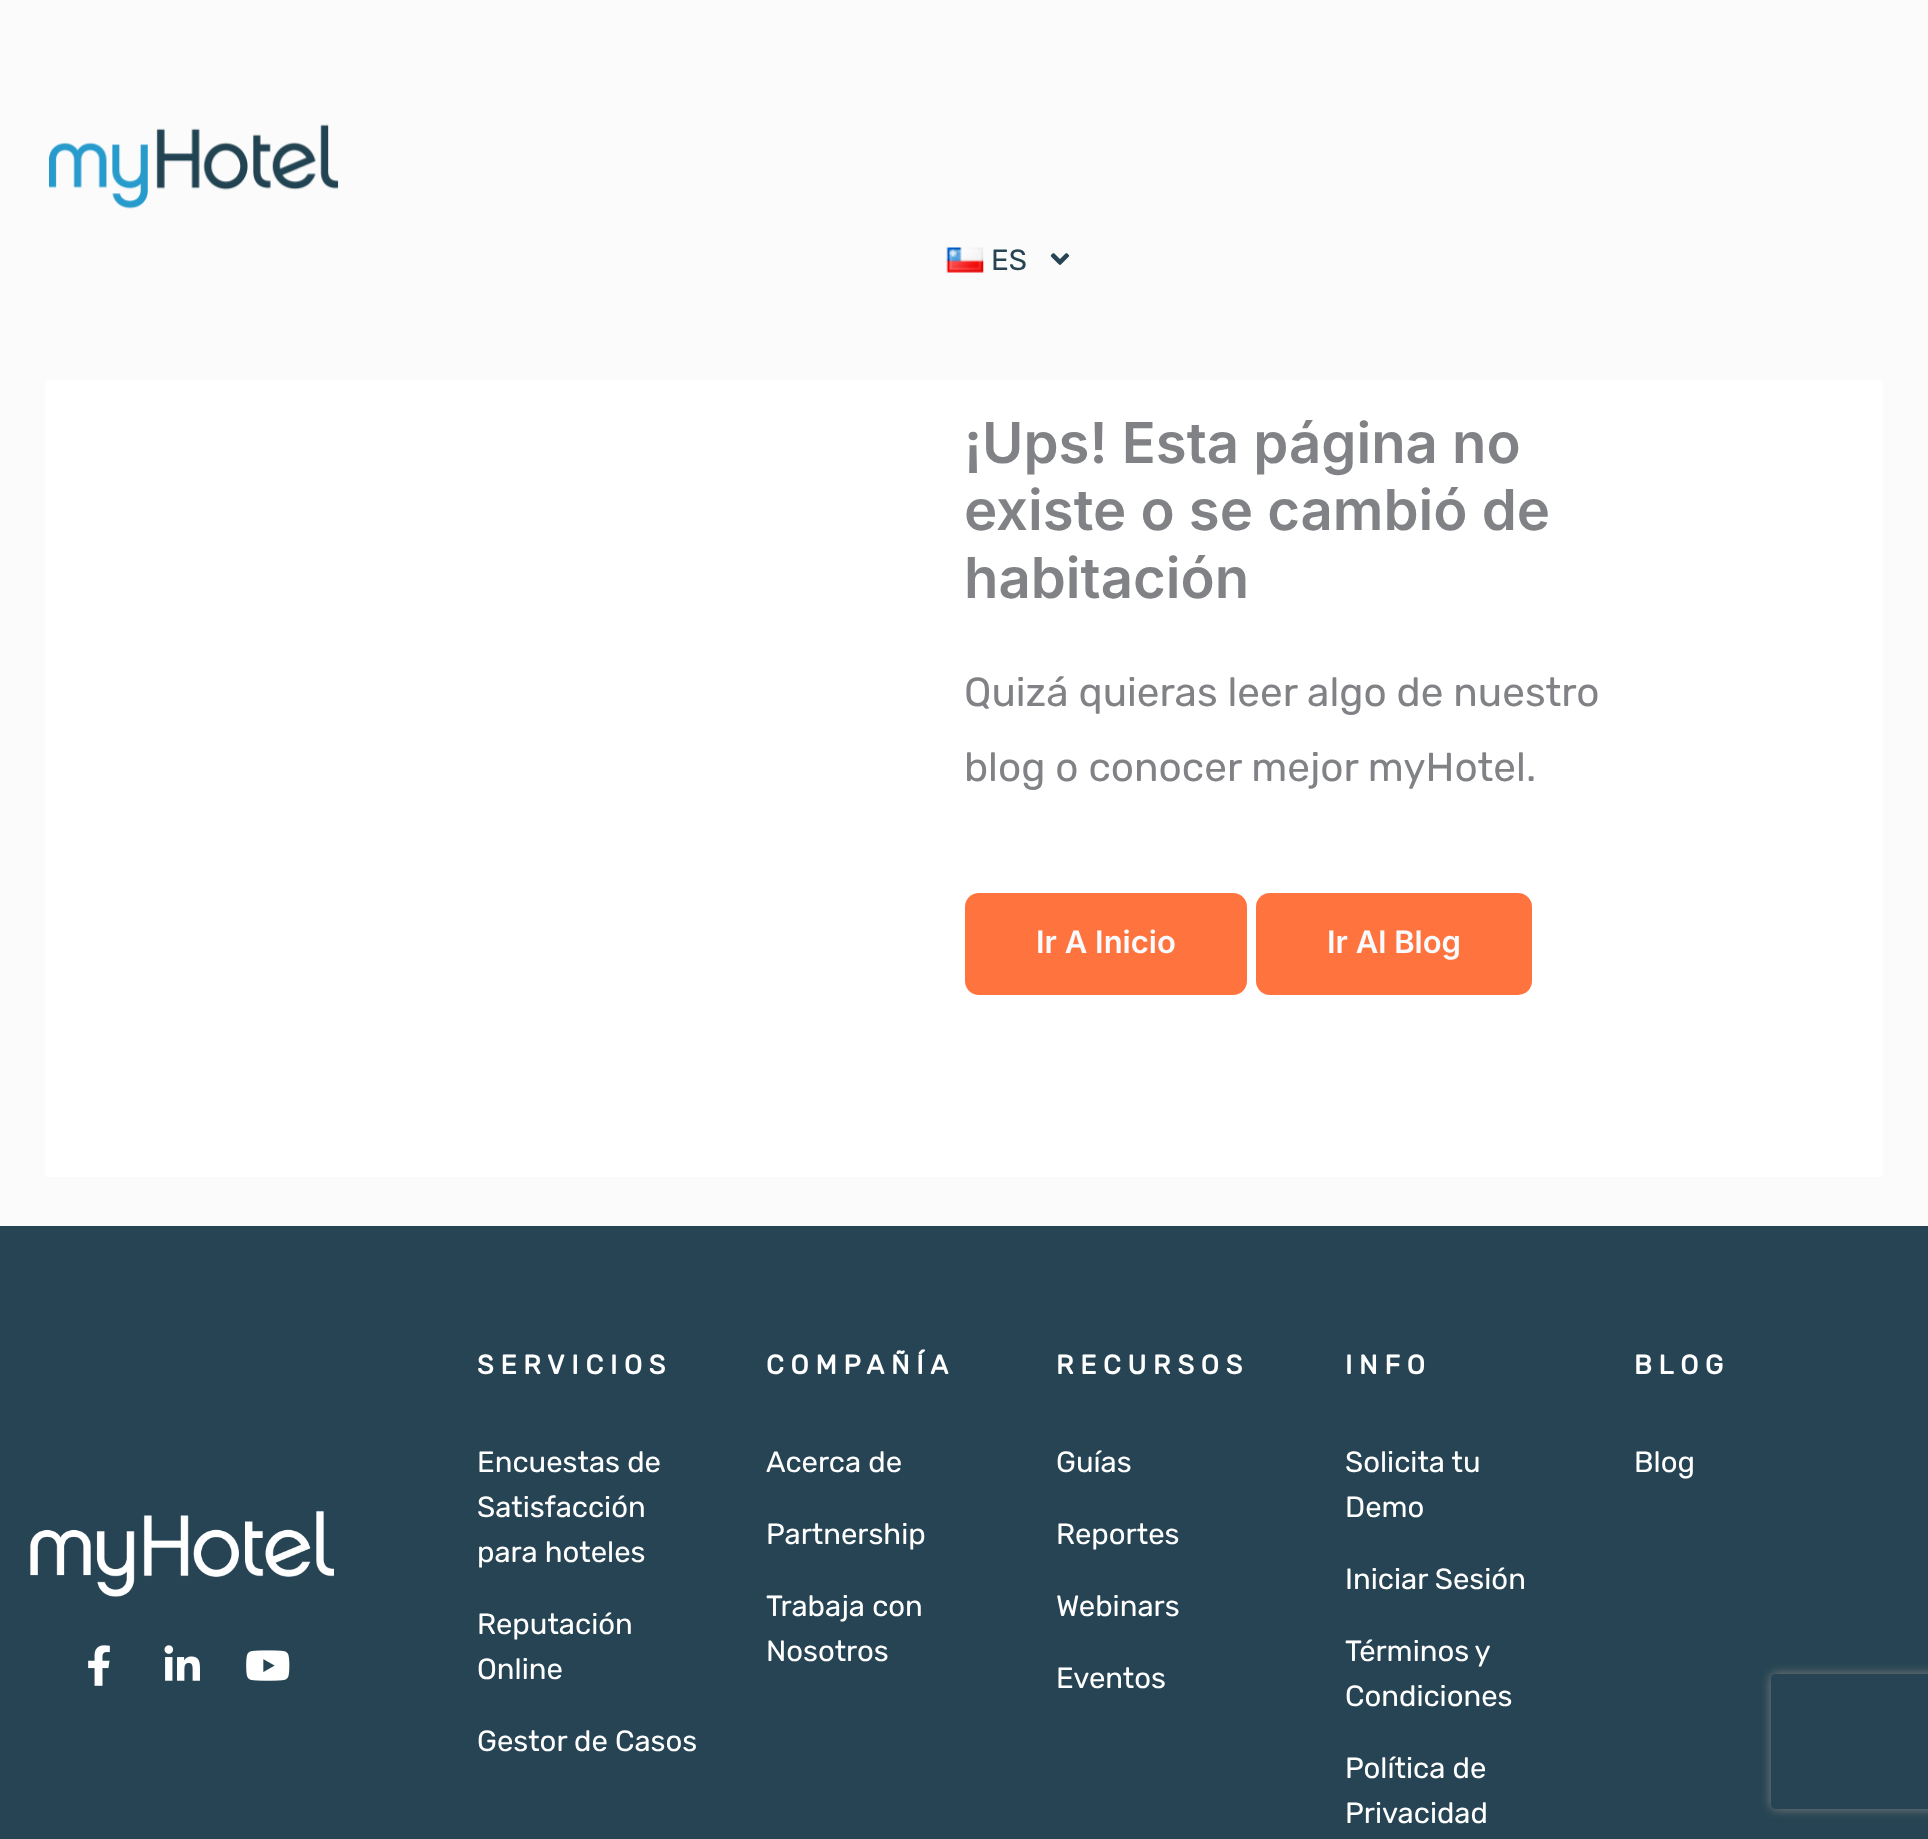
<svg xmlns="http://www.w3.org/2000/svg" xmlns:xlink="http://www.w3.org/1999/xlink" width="1928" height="1839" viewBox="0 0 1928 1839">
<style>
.cls-1{font:300 29.25px Rubik;fill:#264453}
.cls-2{font:600 56.25px Inter;fill:#808285}
.cls-3{font:300 40.5px Rubik;fill:#808285}
.cls-4{font:600 31px Inter;fill:#f8fbfe}
.cls-5{font:bold 26.75px Rubik;letter-spacing:6.75px;fill:#ffffff}
.cls-6{font:300 29.25px Rubik;fill:#ffffff}
</style>
<defs>
<clipPath id="clip1"><path d="M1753 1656H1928V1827H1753ZM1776 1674H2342C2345 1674 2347 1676 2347 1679V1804C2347 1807 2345 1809 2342 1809H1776C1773 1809 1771 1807 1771 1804V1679C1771 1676 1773 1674 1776 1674Z" clip-rule="evenodd"/></clipPath>
</defs>
<rect width="100%" height="100%" fill="#fbfbfb"/>
<image xlink:href="image0.png" x="49" y="124" width="290" height="85"/>
<image xlink:href="image1.png" x="946" y="247" width="38" height="26"/>
<image xlink:href="image2.png" x="1050" y="253" width="20" height="12"/>
<rect fill="#ffffff" x="45" y="380" width="1838" height="797"/>
<rect fill="#ff743e" x="965" y="893" width="282" height="102" rx="14"/>
<rect fill="#ff743e" x="1256" y="893" width="276" height="102" rx="14"/>
<rect fill="#264453" x="0" y="1226" width="1928" height="613"/>
<image xlink:href="image3.png" x="30" y="1510" width="304" height="87"/>
<image xlink:href="image4.png" x="88" y="1645" width="22" height="41"/>
<image xlink:href="image5.png" x="164" y="1645" width="36" height="36"/>
<image xlink:href="image6.png" x="246" y="1650" width="44" height="31"/>
<g clip-path="url(#clip1)">
<rect fill="#808080" filter="blur(5.5px)" x="1771" y="1674" width="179" height="135" rx="5"/>
</g>
<text class="cls-1" x="991" y="270">ES</text>
<text class="cls-2"><tspan x="964" y="463">¡Ups! Esta página no</tspan><tspan x="964" y="530">existe o se cambió de</tspan><tspan x="964" y="598">habitación</tspan></text>
<text class="cls-3"><tspan x="964" y="706">Quizá quieras leer algo de nuestro</tspan><tspan x="964" y="781">blog o conocer mejor myHotel.</tspan></text>
<text class="cls-4" x="1036" y="953">Ir A Inicio</text>
<text class="cls-4" x="1327" y="953">Ir Al Blog</text>
<text class="cls-5" x="477" y="1374">SERVICIOS</text>
<text class="cls-6"><tspan x="477" y="1472">Encuestas de</tspan><tspan x="477" y="1517">Satisfacción</tspan><tspan x="477" y="1562">para hoteles</tspan></text>
<text class="cls-6"><tspan x="477" y="1634">Reputación</tspan><tspan x="477" y="1679">Online</tspan></text>
<text class="cls-6" x="477" y="1751">Gestor de Casos</text>
<text class="cls-5" x="766" y="1374">COMPAÑÍA</text>
<text class="cls-6" x="766" y="1472">Acerca de</text>
<text class="cls-6" x="766" y="1544">Partnership</text>
<text class="cls-6"><tspan x="766" y="1616">Trabaja con</tspan><tspan x="766" y="1661">Nosotros</tspan></text>
<text class="cls-5" x="1056" y="1374">RECURSOS</text>
<text class="cls-6" x="1056" y="1472">Guías</text>
<text class="cls-6" x="1056" y="1544">Reportes</text>
<text class="cls-6" x="1056" y="1616">Webinars</text>
<text class="cls-6" x="1056" y="1688">Eventos</text>
<text class="cls-5" x="1345" y="1374">INFO</text>
<text class="cls-6"><tspan x="1345" y="1472">Solicita tu</tspan><tspan x="1345" y="1517">Demo</tspan></text>
<text class="cls-6" x="1345" y="1589">Iniciar Sesión</text>
<text class="cls-6"><tspan x="1345" y="1661" word-spacing="-1">Términos y</tspan><tspan x="1345" y="1706">Condiciones</tspan></text>
<text class="cls-6"><tspan x="1345" y="1778">Política de</tspan><tspan x="1345" y="1823">Privacidad</tspan></text>
<text class="cls-5" x="1634" y="1374">BLOG</text>
<text class="cls-6" x="1634" y="1472">Blog</text>
</svg>
